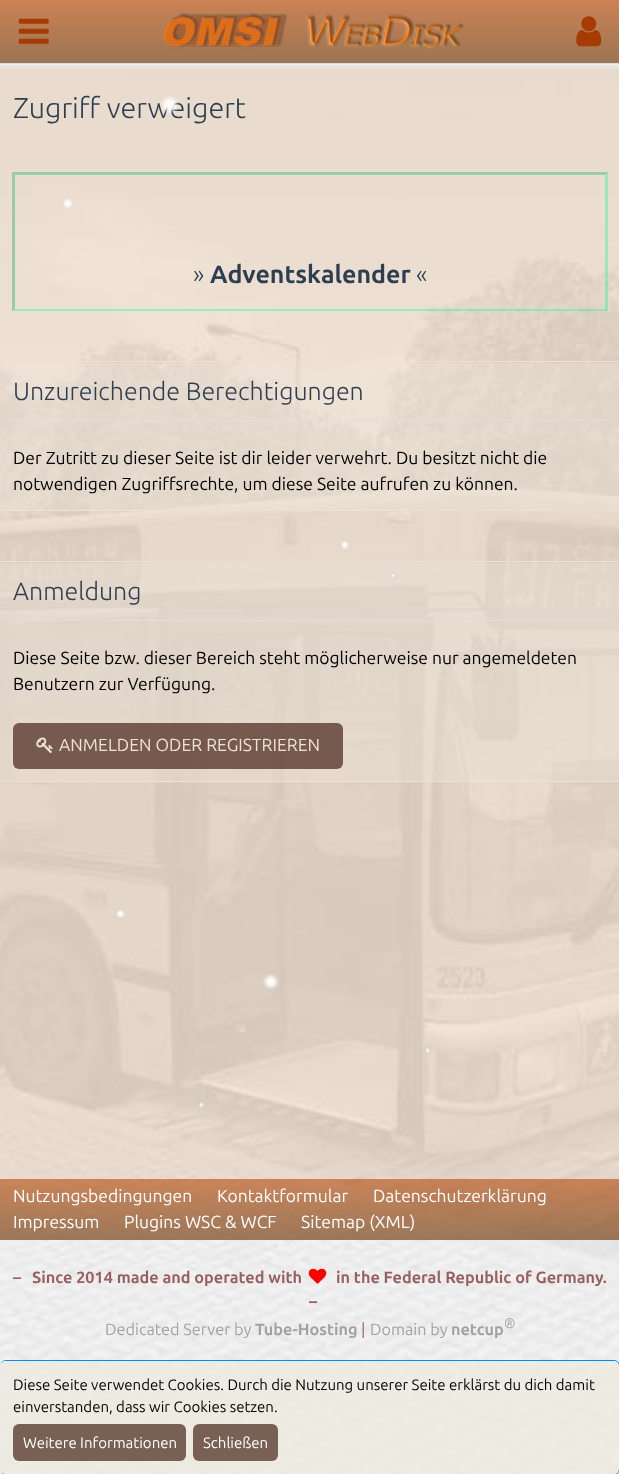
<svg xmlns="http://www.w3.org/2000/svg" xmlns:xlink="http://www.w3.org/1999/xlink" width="619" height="1474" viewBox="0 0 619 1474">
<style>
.cls-1{font:300 28.75px Ubuntu;fill:#2c3e50}
.cls-2{font:300 25px Ubuntu;fill:#2c3e50}
.cls-3{font:bold 25px Ubuntu;fill:#2c3e50}
.cls-4{font:17.5px Ubuntu;fill:#000000}
.cls-5{font:17.5px Ubuntu;fill:#eee2d6}
.cls-6{font:17.5px Ubuntu;fill:#ffffff}
.cls-7{font:600 16.25px Ubuntu;fill:#995f5f}
.cls-8{font:bold 16.25px Ubuntu;fill:#995f5f}
.cls-9{font:16.25px Ubuntu;fill:#a1a2a3}
.cls-10{font:bold 16.25px Ubuntu;fill:#a1a2a3}
.cls-11{font:16.25px Ubuntu;fill:#995f5f}
.cls-12{font:14px Ubuntu;fill:#a1a2a3}
.cls-13{font:15px Ubuntu;fill:#000000}
.cls-14{font:15px Ubuntu;fill:#ffffff}
</style>
<defs>
<linearGradient id="g1" gradientUnits="userSpaceOnUse" x1="310" y1="0" x2="310" y2="63"><stop offset="0" stop-color="#cc8254"/><stop offset="1" stop-color="#9b7554"/></linearGradient>
<linearGradient id="g2" gradientUnits="userSpaceOnUse" x1="310" y1="64" x2="310" y2="66"><stop offset="0" stop-color="#f0ede9"/><stop offset="1" stop-color="#eeeae5"/></linearGradient>
<linearGradient id="g3" gradientUnits="userSpaceOnUse" x1="310" y1="1179" x2="310" y2="1240"><stop offset="0" stop-color="#ff6300" stop-opacity="0.4"/><stop offset="1" stop-color="#844200" stop-opacity="0.4"/></linearGradient>
</defs>
<rect width="100%" height="100%" fill="#ffffff"/>
<image xlink:href="image0.png" x="0" y="68" width="619" height="1406"/>
<rect fill="url(#g1)" x="0" y="0" width="619" height="63"/>
<image xlink:href="image1.png" x="18" y="18" width="31" height="26"/>
<image xlink:href="image2.png" x="576" y="16" width="26" height="31"/>
<image xlink:href="image3.png" x="163" y="13" width="301" height="36"/>
<rect fill="#eeece9" x="0" y="67" width="619" height="1"/>
<rect fill="url(#g2)" x="0" y="64" width="619" height="2"/>
<rect fill="#dddddd" x="0" y="63" width="619" height="1"/>
<rect fill="#dddddd" x="0" y="66" width="619" height="1"/>
<rect fill="#dab185" fill-opacity="0.3" x="0" y="68" width="619" height="1111"/>
<path fill="#98ccaa" d="M12 172H608L605 175H15Z"/>
<path fill="#00ff93" fill-opacity="0.35" d="M608 172V311L605 309V175Z"/>
<path fill="#00ff93" fill-opacity="0.35" d="M608 311H12L15 309H605Z"/>
<path fill="#00aa62" fill-opacity="0.35" d="M12 311V172L15 175V309Z"/>
<rect fill="#eee2d6" fill-opacity="0.4" x="0" y="363" width="619" height="147"/>
<rect fill="#eee2d6" x="0" y="361" width="619" height="1"/>
<rect fill="#eee2d6" x="0" y="510" width="619" height="1"/>
<rect fill="#e0e0e0" x="13" y="420" width="595" height="1"/>
<rect fill="#eee2d6" fill-opacity="0.4" x="0" y="563" width="619" height="218"/>
<rect fill="#eee2d6" x="0" y="561" width="619" height="1"/>
<rect fill="#eee2d6" x="0" y="781" width="619" height="1"/>
<rect fill="#e0e0e0" x="13" y="620" width="595" height="1"/>
<rect fill="#472519" fill-opacity="0.7" x="13" y="723" width="330" height="46" rx="6"/>
<image xlink:href="image4.png" x="36" y="737" width="17" height="16"/>
<rect fill="#431f0f" fill-opacity="0.4" x="0" y="1179" width="619" height="61"/>
<rect fill="url(#g3)" x="0" y="1179" width="619" height="61"/>
<image xlink:href="image5.png" x="308" y="1268" width="19" height="16"/>
<path fill="#eceade" fill-opacity="0.8" d="M6 1361H614C617 1361 619 1363 619 1366V1469C619 1472 617 1474 614 1474H6C3 1474 0 1472 0 1469V1366C0 1363 3 1361 6 1361Z"/>
<path fill="#008aff" fill-rule="evenodd" d="M6 1360H614C617 1360 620 1363 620 1366V1469C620 1472 617 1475 614 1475H6C3 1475 0 1472 0 1469V1366C0 1363 3 1360 6 1360ZM6 1361H614C617 1361 619 1363 619 1366V1469C619 1472 617 1474 614 1474H6C3 1474 0 1472 0 1469V1366C0 1363 3 1361 6 1361Z"/>
<rect fill="#472519" fill-opacity="0.7" x="13" y="1424" width="173" height="37" rx="6"/>
<rect fill="#472519" fill-opacity="0.7" x="193" y="1424" width="85" height="37" rx="6"/>
<text class="cls-1" x="13" y="118">Zugriff verweigert</text>
<text class="cls-2" x="193" y="283">»</text>
<text class="cls-3" x="210" y="283">Adventskalender</text>
<text class="cls-2" x="416" y="283">«</text>
<text class="cls-2" x="13" y="400">Unzureichende Berechtigungen</text>
<text class="cls-4"><tspan x="13" y="464">Der Zutritt zu dieser Seite ist dir leider verwehrt. Du besitzt nicht die</tspan><tspan x="13" y="490">notwendigen Zugriffsrechte, um diese Seite aufrufen zu können.</tspan></text>
<text class="cls-2" x="13" y="600">Anmeldung</text>
<text class="cls-4"><tspan x="13" y="664">Diese Seite bzw. dieser Bereich steht möglicherweise nur angemeldeten</tspan><tspan x="13" y="690">Benutzern zur Verfügung.</tspan></text>
<text class="cls-5" x="59" y="751">ANMELDEN ODER REGISTRIEREN</text>
<text class="cls-6" x="13" y="1202">Nutzungsbedingungen</text>
<text class="cls-6" x="217" y="1202">Kontaktformular</text>
<text class="cls-6" x="373" y="1202">Datenschutzerklärung</text>
<text class="cls-6" x="13" y="1228">Impressum</text>
<text class="cls-6" x="124" y="1228">Plugins WSC &amp; WCF</text>
<text class="cls-6" x="301" y="1228">Sitemap (XML)</text>
<text class="cls-7" x="13" y="1283">–</text>
<text class="cls-8" x="32" y="1283">Since 2014 made and operated with</text>
<text class="cls-8" x="336" y="1283">in the Federal Republic of Germany.</text>
<text class="cls-8" x="309" y="1307">–</text>
<text class="cls-9" x="105" y="1335">Dedicated Server by</text>
<text class="cls-10" x="255" y="1335">Tube-Hosting</text>
<text class="cls-11" x="361" y="1335">|</text>
<text class="cls-9" x="370" y="1335">Domain by</text>
<text class="cls-10" x="451" y="1335">netcup</text>
<text class="cls-12" x="504" y="1328">®</text>
<image xlink:href="image6.png" x="63" y="95" width="368" height="1014"/>
<text class="cls-13"><tspan x="13" y="1390">Diese Seite verwendet Cookies. Durch die Nutzung unserer Seite erklärst du dich damit</tspan><tspan x="13" y="1412">einverstanden, dass wir Cookies setzen.</tspan></text>
<text class="cls-14" x="23" y="1448">Weitere Informationen</text>
<text class="cls-14" x="203" y="1448">Schließen</text>
</svg>
